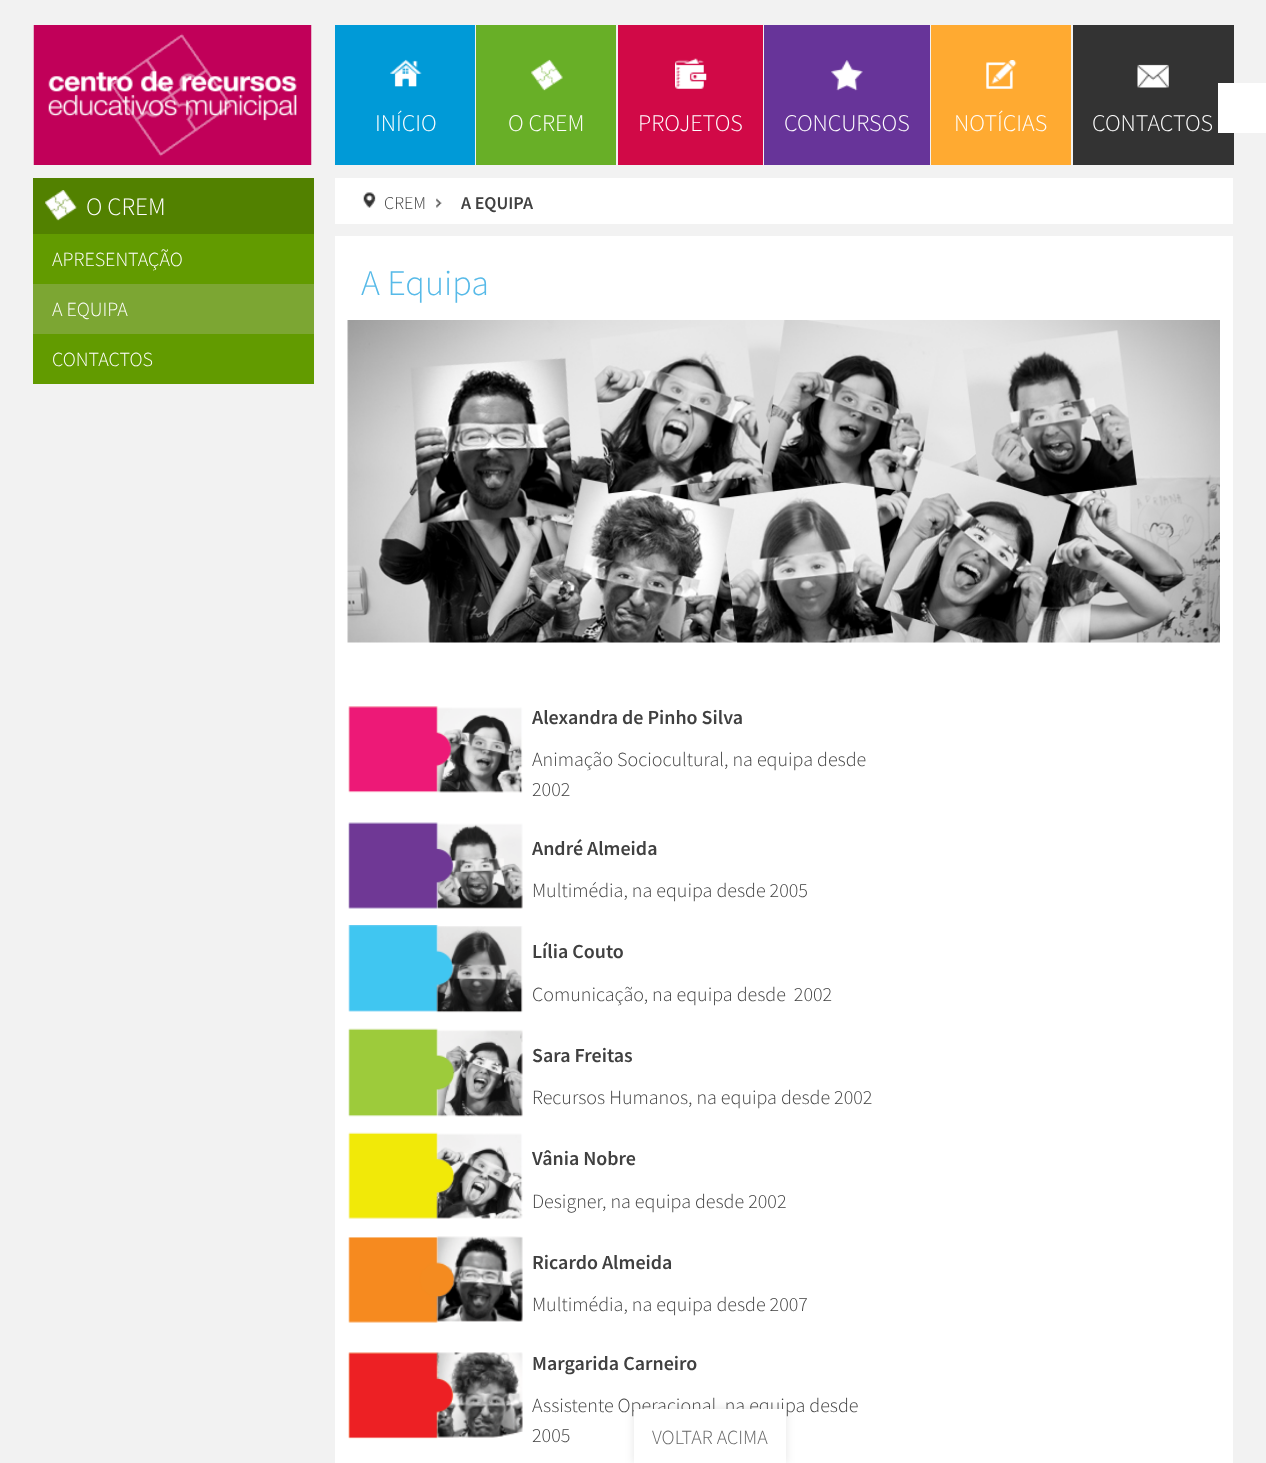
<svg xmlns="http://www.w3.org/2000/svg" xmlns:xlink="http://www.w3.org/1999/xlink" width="1266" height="1463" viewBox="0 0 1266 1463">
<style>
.cls-1{font:300 24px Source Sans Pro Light;fill:#ffffff}
.cls-2{font:300 25px Source Sans Pro Light;fill:#ffffff}
.cls-3{font:300 20px Source Sans Pro Light;fill:#ffffff}
.cls-4{font:300 18px Source Sans Pro Light;fill:#404040}
.cls-5{font:600 18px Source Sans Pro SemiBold;fill:#404040}
.cls-6{font:300 36px Source Sans Pro Light;fill:#57bae8}
.cls-7{font:600 20px Source Sans Pro SemiBold;fill:#404040}
.cls-8{font:300 20px Source Sans Pro Light;fill:#404040}
.cls-9{font:300 20px Source Sans Pro Light;fill:#666666}
</style>
<rect width="100%" height="100%" fill="#f2f2f2"/>
<image xlink:href="image0.png" x="33" y="25" width="279" height="140"/>
<rect fill="#009ad7" x="335" y="25" width="140" height="140"/>
<image xlink:href="image1.png" x="390" y="59" width="32" height="28"/>
<rect fill="#68af27" x="476" y="25" width="140" height="140"/>
<image xlink:href="image2.png" x="531" y="59" width="32" height="32"/>
<rect fill="#d10947" x="618" y="25" width="145" height="140"/>
<image xlink:href="image3.png" x="675" y="58" width="32" height="31"/>
<rect fill="#673499" x="764" y="25" width="166" height="140"/>
<image xlink:href="image4.png" x="831" y="60" width="32" height="31"/>
<rect fill="#ffaa31" x="931" y="25" width="140" height="140"/>
<image xlink:href="image5.png" x="986" y="60" width="31" height="29"/>
<rect fill="#333333" x="1073" y="25" width="161" height="140"/>
<image xlink:href="image6.png" x="1137" y="64" width="32" height="24"/>
<rect fill="#ffffff" x="1218" y="83" width="48" height="50"/>
<rect fill="#629b00" x="33" y="234" width="281" height="150"/>
<rect fill="#528100" x="33" y="178" width="281" height="56"/>
<image xlink:href="image7.png" x="45" y="190" width="32" height="31"/>
<rect fill="#7ca633" x="33" y="284" width="281" height="50"/>
<rect fill="#ffffff" x="335" y="178" width="898" height="46"/>
<image xlink:href="image8.png" x="363" y="192" width="13" height="16"/>
<image xlink:href="image9.png" x="436" y="198" width="6" height="10"/>
<rect fill="#ffffff" x="335" y="236" width="898" height="1227"/>
<image xlink:href="image10.png" x="347" y="320" width="873" height="323"/>
<image xlink:href="image11.png" x="348" y="706" width="175" height="87"/>
<image xlink:href="image12.png" x="348" y="822" width="175" height="87"/>
<image xlink:href="image13.png" x="348" y="925" width="175" height="88"/>
<image xlink:href="image14.png" x="348" y="1028" width="175" height="89"/>
<image xlink:href="image15.png" x="348" y="1132" width="175" height="87"/>
<image xlink:href="image16.png" x="348" y="1236" width="175" height="87"/>
<image xlink:href="image17.png" x="348" y="1352" width="175" height="87"/>
<rect fill="#000000" fill-opacity="0.1" filter="blur(5px)" x="634" y="1409" width="152" height="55"/>
<text class="cls-1" x="375" y="131">INÍCIO</text>
<text class="cls-1" x="508" y="131">O CREM</text>
<text class="cls-1" x="638" y="131">PROJETOS</text>
<text class="cls-1" x="784" y="131">CONCURSOS</text>
<text class="cls-1" x="954" y="131">NOTÍCIAS</text>
<text class="cls-1" x="1092" y="131">CONTACTOS</text>
<text class="cls-2" x="86" y="215">O CREM</text>
<text class="cls-3" x="52" y="266">APRESENTAÇÃO</text>
<text class="cls-3" x="52" y="316">A EQUIPA</text>
<text class="cls-3" x="52" y="366">CONTACTOS</text>
<text class="cls-4" x="384" y="209">CREM</text>
<text class="cls-5" x="461" y="209">A EQUIPA</text>
<text class="cls-6" x="361" y="295">A Equipa</text>
<text class="cls-7" x="532" y="724">Alexandra de Pinho Silva</text>
<text class="cls-8"><tspan x="532" y="766">Animação Sociocultural, na equipa desde</tspan><tspan x="532" y="796">2002</tspan></text>
<text class="cls-7" x="532" y="855">André Almeida</text>
<text class="cls-8" x="532" y="897">Multimédia, na equipa desde 2005</text>
<text class="cls-7" x="532" y="958">Lília Couto</text>
<text class="cls-8" xml:space="preserve" x="532" y="1001">Comunicação, na equipa desde  2002</text>
<text class="cls-7" x="532" y="1062">Sara Freitas</text>
<text class="cls-8" x="532" y="1104">Recursos Humanos, na equipa desde 2002</text>
<text class="cls-7" x="532" y="1165">Vânia Nobre</text>
<text class="cls-8" x="532" y="1208">Designer, na equipa desde 2002</text>
<text class="cls-7" x="532" y="1269">Ricardo Almeida</text>
<text class="cls-8" x="532" y="1311">Multimédia, na equipa desde 2007</text>
<text class="cls-7" x="532" y="1370">Margarida Carneiro</text>
<text class="cls-8"><tspan x="532" y="1412">Assistente Operacional, na equipa desde</tspan><tspan x="532" y="1442">2005</tspan></text>
<rect fill="#ffffff" x="634" y="1409" width="152" height="54"/>
<text class="cls-9" x="652" y="1444">VOLTAR ACIMA</text>
</svg>
